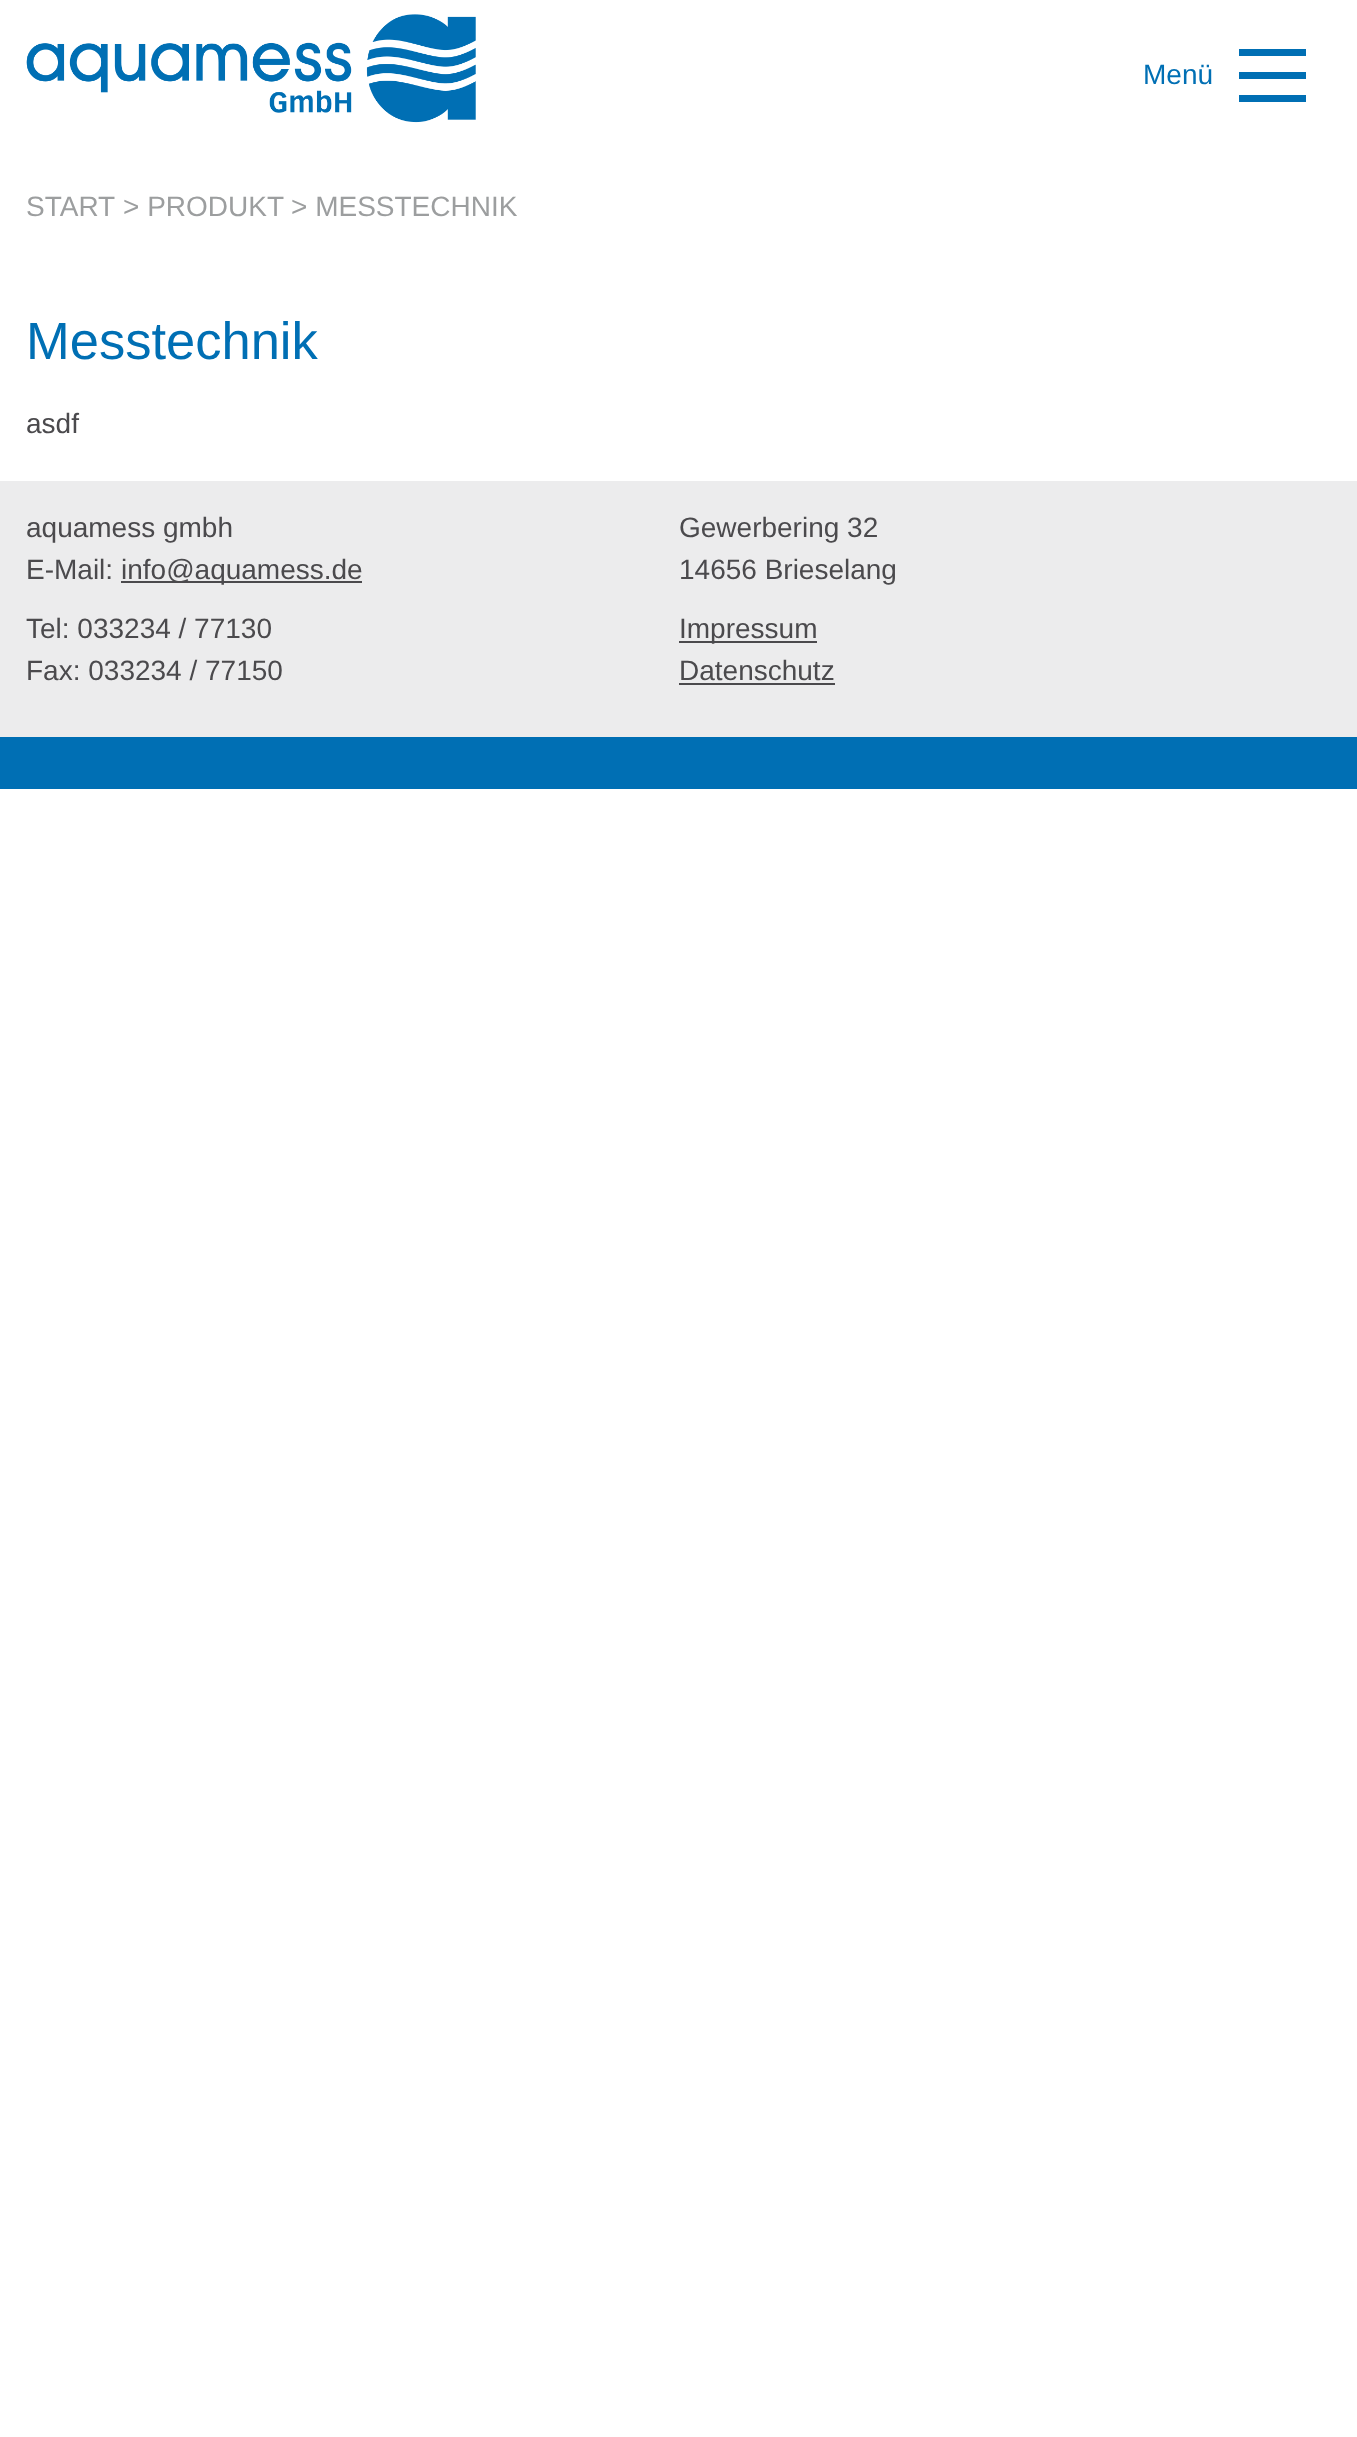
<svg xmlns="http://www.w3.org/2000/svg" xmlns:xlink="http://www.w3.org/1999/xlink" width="1357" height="2437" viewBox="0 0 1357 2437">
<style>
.cls-1{font:28px Liberation Sans;fill:#006fb4}
.cls-2{font:28px Liberation Sans;fill:#9c9e9f}
.cls-3{font:52.5px Liberation Sans;fill:#006fb4}
.cls-4{font:28px Liberation Sans;fill:#4b4a4d}
</style>
<rect width="100%" height="100%" fill="#ffffff"/>
<image xlink:href="image0.png" x="26" y="14" width="450" height="109"/>
<rect fill="#006fb4" x="1239" y="49" width="67" height="7"/>
<rect fill="#006fb4" x="1239" y="72" width="67" height="7"/>
<rect fill="#006fb4" x="1239" y="95" width="67" height="7"/>
<rect fill="#ececed" x="0" y="481" width="1357" height="256"/>
<rect fill="#006fb4" x="0" y="737" width="1357" height="52"/>
<rect fill="#4b4a4d" x="121" y="581" width="241" height="2"/>
<rect fill="#4b4a4d" x="679" y="641" width="138" height="2"/>
<rect fill="#4b4a4d" x="679" y="683" width="156" height="2"/>
<text class="cls-1" x="1143" y="84">Menü</text>
<text class="cls-2" x="26" y="216">START</text>
<text class="cls-2" x="123" y="216">&gt; PRODUKT</text>
<text class="cls-2" x="291" y="216">&gt; MESSTECHNIK</text>
<text class="cls-3" x="26" y="359">Messtechnik</text>
<text class="cls-4" x="26" y="433">asdf</text>
<text class="cls-4"><tspan x="26" y="537">aquamess gmbh</tspan><tspan x="26" y="579">E-Mail:</tspan></text>
<text class="cls-4" x="121" y="579">info@aquamess.de</text>
<text class="cls-4"><tspan x="679" y="537">Gewerbering 32</tspan><tspan x="679" y="579">14656 Brieselang</tspan></text>
<text class="cls-4"><tspan x="26" y="638">Tel: 033234 / 77130</tspan><tspan x="26" y="680">Fax: 033234 / 77150</tspan></text>
<text class="cls-4"><tspan x="679" y="638">Impressum</tspan><tspan x="679" y="680">Datenschutz</tspan></text>
</svg>
